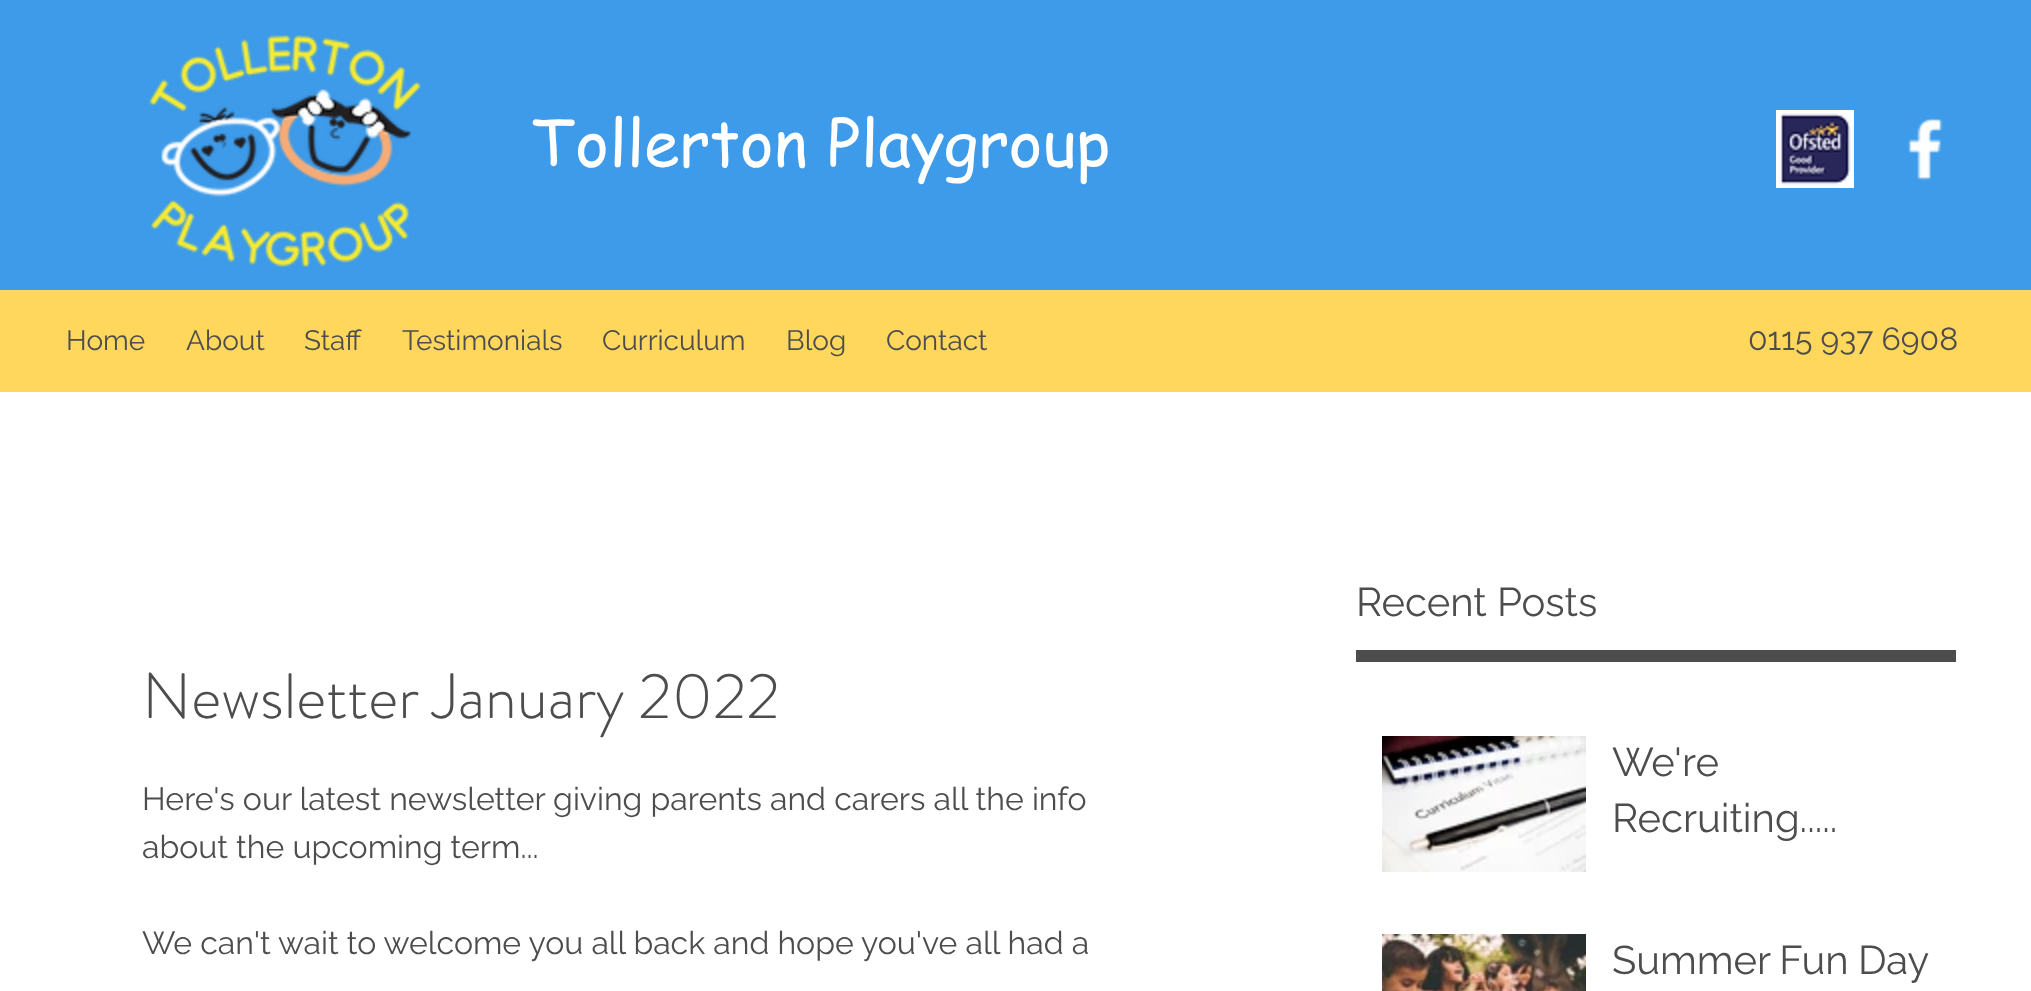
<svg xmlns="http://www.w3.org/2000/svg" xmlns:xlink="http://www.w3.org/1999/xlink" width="2031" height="991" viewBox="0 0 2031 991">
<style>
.cls-1{font:64px 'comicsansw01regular';fill:#ffffff}
.cls-2{font:28px Raleway;fill:#4d4d4d}
.cls-3{font:32px Raleway;fill:#4d4d4d}
.cls-4{font:300 64px 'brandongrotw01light';fill:#4d4d4d}
.cls-5{font:40px Raleway;fill:#4d4d4d}
</style>
<rect width="100%" height="100%" fill="#ffffff"/>
<rect fill="#3d9be9" x="0" y="0" width="2031" height="290"/>
<image xlink:href="image0.png" x="149" y="35" width="272" height="232"/>
<image xlink:href="image1.png" x="1776" y="110" width="78" height="78"/>
<image xlink:href="image2.png" x="1907" y="118" width="36" height="63"/>
<rect fill="#ffd75c" x="0" y="290" width="2031" height="102"/>
<rect fill="#4d4d4d" x="1356" y="650" width="600" height="12"/>
<image xlink:href="image3.png" x="1382" y="736" width="204" height="136"/>
<image xlink:href="image4.png" x="1382" y="934" width="204" height="57"/>
<text class="cls-1" x="532" y="166">Tollerton Playgroup</text>
<text class="cls-2" x="66" y="350">Home</text>
<text class="cls-2" x="186" y="350">About</text>
<text class="cls-2" x="304" y="350">Staff</text>
<text class="cls-2" x="402" y="350">Testimonials</text>
<text class="cls-2" x="602" y="350">Curriculum</text>
<text class="cls-2" x="786" y="350">Blog</text>
<text class="cls-2" x="886" y="350">Contact</text>
<text class="cls-3" x="1748" y="350">0115 937 6908</text>
<text class="cls-4" x="142" y="718">Newsletter January 2022</text>
<text class="cls-3"><tspan x="142" y="810">Here's our latest newsletter giving parents and carers all the info</tspan><tspan x="142" y="858">about the upcoming term...</tspan></text>
<text class="cls-3" x="142" y="954">We can't wait to welcome you all back and hope you've all had a</text>
<text class="cls-5" x="1356" y="616">Recent Posts</text>
<text class="cls-5"><tspan x="1612" y="776">We're</tspan><tspan x="1612" y="832">Recruiting.....</tspan></text>
<text class="cls-5" x="1612" y="974" word-spacing="-1">Summer Fun Day</text>
</svg>
